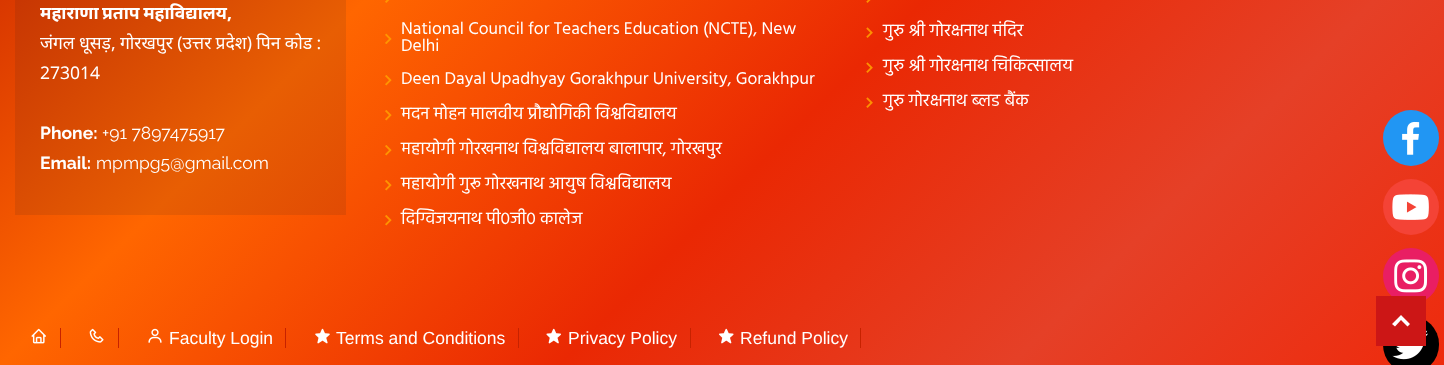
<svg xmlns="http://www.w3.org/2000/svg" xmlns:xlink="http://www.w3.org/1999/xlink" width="1444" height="365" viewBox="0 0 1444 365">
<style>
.cls-1{font:bold 17.5px Noto Sans;fill:#ffffff}
.cls-2{font:17.5px Noto Sans;fill:#ffffff}
.cls-3{font:bold 17.5px Raleway;fill:#ffffff}
.cls-4{font:17.5px Raleway;fill:#ffffff}
.cls-5{font:17.5px Hind;fill:#ffffff}
.cls-6{font:17.5px Liberation Sans;fill:#ffffff}
</style>
<defs>
<linearGradient id="g1" gradientUnits="userSpaceOnUse" x1="185" y1="-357" x2="1260" y2="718"><stop offset="0" stop-color="#c72200"/><stop offset="0.25" stop-color="#ff6600"/><stop offset="0.51" stop-color="#ea2803"/><stop offset="0.72" stop-color="#e54027"/><stop offset="1" stop-color="#f22202"/></linearGradient>
<linearGradient id="g2" gradientUnits="userSpaceOnUse" x1="185" y1="-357" x2="1260" y2="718"><stop offset="0" stop-color="#b62103"/><stop offset="0.25" stop-color="#e85e03"/><stop offset="0.51" stop-color="#d52705"/><stop offset="0.72" stop-color="#d13c26"/><stop offset="1" stop-color="#dc2104"/></linearGradient>
</defs>
<rect width="100%" height="100%" fill="#ffffff"/>
<rect fill="url(#g1)" x="0" y="0" width="1444" height="365"/>
<rect fill="url(#g2)" x="15" y="0" width="331" height="215"/>
<image xlink:href="image0.png" x="385" y="0" width="4" height="3"/>
<image xlink:href="image1.png" x="385" y="33" width="7" height="11"/>
<image xlink:href="image2.png" x="385" y="75" width="7" height="11"/>
<image xlink:href="image3.png" x="385" y="110" width="7" height="11"/>
<image xlink:href="image4.png" x="385" y="145" width="7" height="11"/>
<image xlink:href="image5.png" x="385" y="180" width="7" height="11"/>
<image xlink:href="image6.png" x="385" y="215" width="7" height="11"/>
<image xlink:href="image7.png" x="866" y="0" width="5" height="3"/>
<image xlink:href="image8.png" x="866" y="27" width="7" height="11"/>
<image xlink:href="image9.png" x="866" y="62" width="7" height="11"/>
<image xlink:href="image10.png" x="866" y="97" width="7" height="11"/>
<rect fill="#c72200" x="60" y="328" width="1" height="20"/>
<image xlink:href="image11.png" x="31" y="328" width="15" height="16"/>
<rect fill="#c72200" x="118" y="328" width="1" height="20"/>
<image xlink:href="image12.png" x="89" y="328" width="15" height="15"/>
<rect fill="#c72200" x="285" y="328" width="1" height="20"/>
<image xlink:href="image13.png" x="148" y="328" width="14" height="15"/>
<rect fill="#c72200" x="518" y="328" width="1" height="20"/>
<image xlink:href="image14.png" x="315" y="328" width="15" height="16"/>
<rect fill="#c72200" x="690" y="328" width="1" height="20"/>
<image xlink:href="image15.png" x="546" y="328" width="15" height="16"/>
<rect fill="#c72200" x="860" y="328" width="1" height="20"/>
<image xlink:href="image16.png" x="719" y="328" width="15" height="16"/>
<circle fill="#2196f3" cx="1411" cy="138" r="28"/>
<image xlink:href="image17.png" x="1402" y="121" width="18" height="34"/>
<circle fill="#f44336" cx="1411" cy="207" r="28"/>
<image xlink:href="image18.png" x="1392" y="194" width="37" height="26"/>
<circle fill="#e91e63" cx="1411" cy="276" r="28"/>
<image xlink:href="image19.png" x="1394" y="259" width="34" height="34"/>
<rect fill="#000000" x="1383" y="316" width="56" height="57" rx="28"/>
<image xlink:href="image20.png" x="1392" y="330" width="36" height="30"/>
<rect fill="#cc1616" x="1376" y="296" width="50" height="50"/>
<path fill="#ffffff" d="M1395 326.5L1401 320L1407.5 326.5L1410 324L1401 315L1392 324Z"/>
<text class="cls-1" x="40" y="19" word-spacing="-1">महाराणा प्रताप महाविद्यालय,</text>
<text class="cls-2"><tspan x="40" y="49" word-spacing="-0.25">जंगल धूसड़, गोरखपुर (उत्तर प्रदेश) पिन कोड :</tspan><tspan x="40" y="79">273014</tspan></text>
<text class="cls-3" x="40" y="139">Phone:</text>
<text class="cls-4" x="102" y="139">+91 7897475917</text>
<text class="cls-3" x="40" y="169">Email:</text>
<text class="cls-4" x="96" y="169">mpmpg5@gmail.com</text>
<text class="cls-5"><tspan x="401" y="34">National Council for Teachers Education (NCTE), New</tspan><tspan x="401" y="51">Delhi</tspan><tspan x="401" y="84">Deen Dayal Upadhyay Gorakhpur University, Gorakhpur</tspan></text>
<text class="cls-5" x="401" y="119">मदन मोहन मालवीय प्रौद्योगिकी विश्वविद्यालय</text>
<text class="cls-5" x="401" y="154">महायोगी गोरखनाथ विश्वविद्यालय बालापार, गोरखपुर</text>
<text class="cls-5" x="401" y="189">महायोगी गुरू गोरखनाथ आयुष विश्वविद्यालय</text>
<text class="cls-5" x="401" y="224">दिग्विजयनाथ पी0जी0 कालेज</text>
<text class="cls-5" x="883" y="36">गुरु श्री गोरक्षनाथ मंदिर</text>
<text class="cls-5" x="883" y="71">गुरु श्री गोरक्षनाथ चिकित्सालय</text>
<text class="cls-5" x="883" y="106">गुरु गोरक्षनाथ ब्लड बैंक</text>
<text class="cls-6" x="169" y="344">Faculty Login</text>
<text class="cls-6" x="336" y="344">Terms and Conditions</text>
<text class="cls-6" x="568" y="344">Privacy Policy</text>
<text class="cls-6" x="740" y="344">Refund Policy</text>
</svg>
